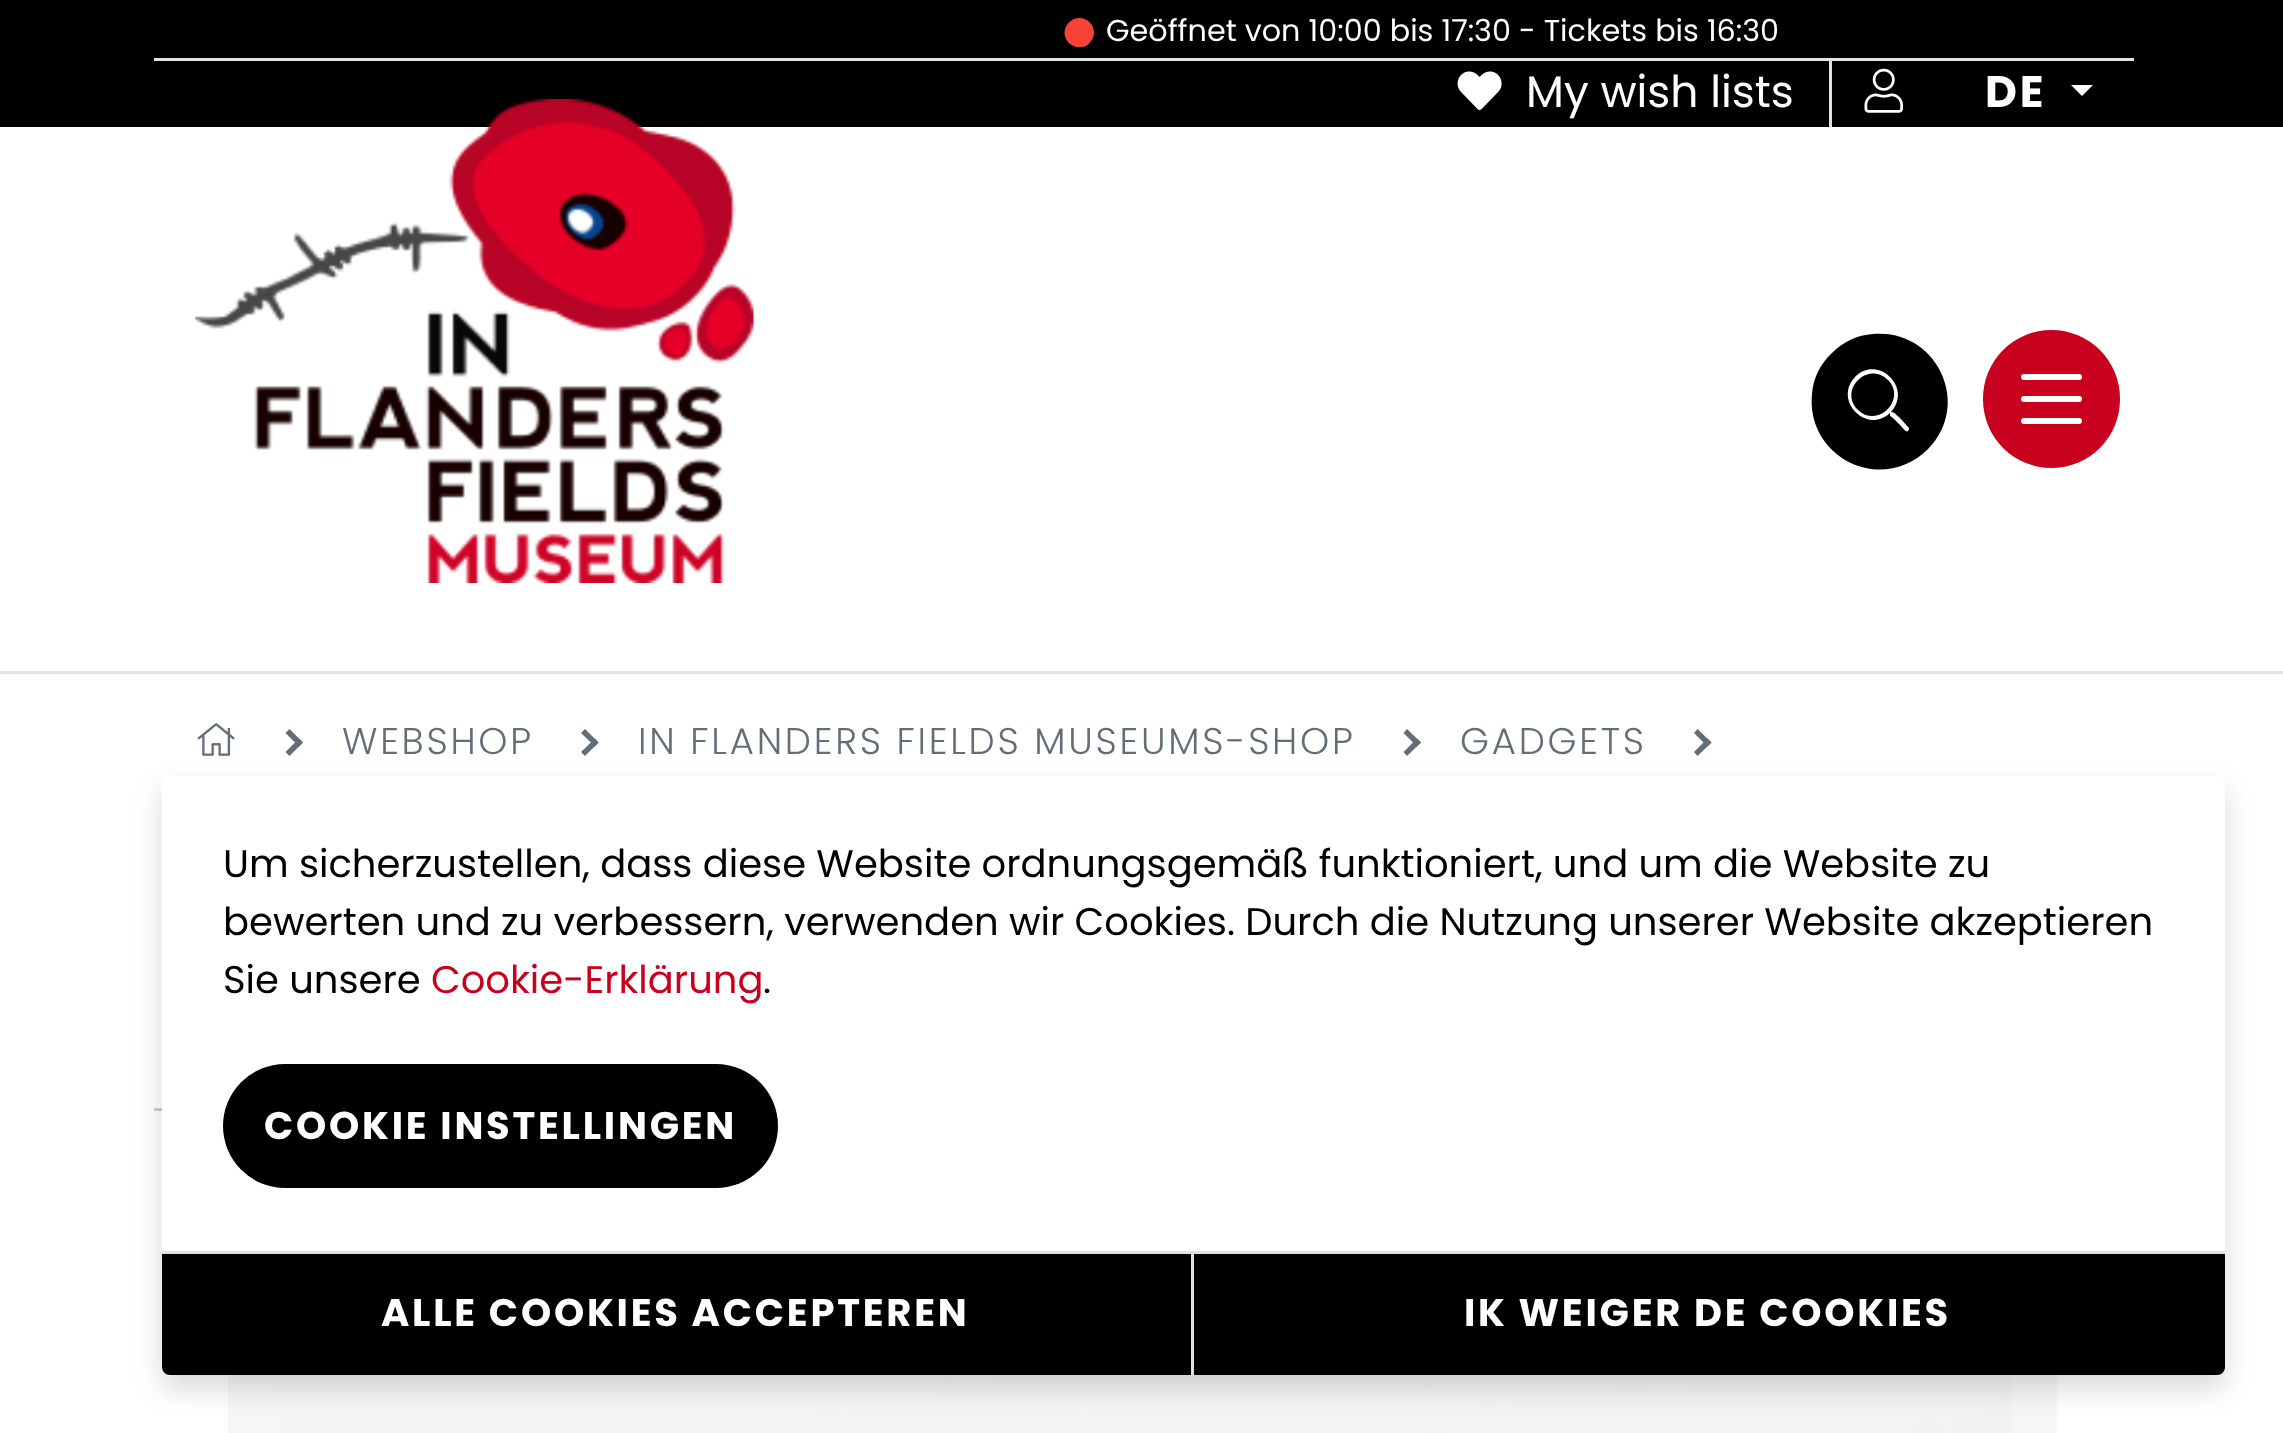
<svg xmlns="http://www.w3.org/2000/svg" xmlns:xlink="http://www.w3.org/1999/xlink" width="2283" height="1433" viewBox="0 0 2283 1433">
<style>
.cls-1{font:30.25px Poppins;fill:#ffffff}
.cls-2{font:44px Poppins;fill:#ffffff}
.cls-3{font:bold 44px Poppins;letter-spacing:2.75px;fill:#ffffff}
.cls-4{font:300 37.1px Poppins;letter-spacing:2.75px;fill:#626d78}
.cls-5{font:38.5px Poppins;fill:#000000}
.cls-6{font:38.5px Poppins;fill:#c8011f}
.cls-7{font:bold 38.5px Poppins;letter-spacing:2.75px;fill:#ffffff}
</style>
<rect width="100%" height="100%" fill="#ffffff"/>
<rect fill="#000000" x="0" y="0" width="2283" height="127"/>
<path fill="#f44336" d="M1069 22.5C1079 12.5 1095 20.5 1094 34C1093.5 37.5 1092 40.5 1089.5 43C1087.5 45.5 1084.5 47 1081 47C1067 48.5 1059 32 1069 22.5Z"/>
<rect fill="#dee2e6" x="154" y="58" width="1980" height="3"/>
<rect fill="#dee2e6" x="1829" y="61" width="3" height="66"/>
<image xlink:href="image0.png" x="1457" y="71" width="45" height="39"/>
<image xlink:href="image1.png" x="1864" y="68" width="39" height="45"/>
<path fill="#ffffff" d="M2071 85H2093L2082 96Z"/>
<rect fill="#dee2e6" x="0" y="671" width="2283" height="3"/>
<image xlink:href="image2.png" x="195" y="99" width="559" height="484"/>
<path fill="#000000" d="M1832 353C1843 342 1857 335 1873 334C1936 328 1973 404 1928 449C1882 495 1806 458 1812 394C1813 379 1820 364 1832 353Z"/>
<path fill="#ffffff" d="M1909 428V429L1908 431C1906 433 1902 427 1901 426L1893 418C1890 416 1890 416 1890 413C1866 435 1833 400 1855 377C1878 354 1913 388 1891 412C1895 412 1896 415 1899 417ZM1858 410C1878 429 1907 399 1888 380C1868 360 1838 390 1858 410Z"/>
<rect fill="#c8011f" x="1983" y="330" width="137" height="138" rx="68.5"/>
<rect fill="#ffffff" x="2021" y="396" width="61" height="6" rx="3"/>
<rect fill="#ffffff" x="2021" y="374" width="61" height="6" rx="3"/>
<rect fill="#ffffff" x="2021" y="418" width="61" height="6" rx="3"/>
<rect fill="#cecece" x="154" y="1108" width="8" height="3"/>
<image xlink:href="image3.png" x="197" y="723" width="38" height="33"/>
<path fill="#626d78" d="M285.5 733L289.5 729L303 742.5L299 746.5Z"/>
<path fill="#626d78" d="M285.5 752L299 738.5L303 742.5L289.5 756Z"/>
<path fill="#626d78" d="M581 733L585 729L598.5 742.5L595 746.5Z"/>
<path fill="#626d78" d="M581 752L595 738.5L598.5 742.5L585 756Z"/>
<path fill="#626d78" d="M1403.5 733L1407 729L1421 742.5L1417 746.5Z"/>
<path fill="#626d78" d="M1403.5 752L1417 738.5L1421 742.5L1407 756Z"/>
<path fill="#626d78" d="M1694 733L1697.5 729L1711.5 742.5L1707.5 746.5Z"/>
<path fill="#626d78" d="M1694 752L1707.5 738.5L1711.5 742.5L1697.5 756Z"/>
<image xlink:href="image4.png" x="228" y="1375" width="1829" height="58"/>
<rect fill="#000000" fill-opacity="0.15" filter="blur(14px)" x="162" y="789" width="2063" height="600" rx="8"/>
<rect fill="#ffffff" x="162" y="776" width="2063" height="599" rx="8"/>
<rect fill="#000000" x="223" y="1064" width="555" height="124" rx="62"/>
<path fill="#000000" d="M162 1251H1194V1375H170C165.5 1375 162 1371.5 162 1367Z"/>
<rect fill="#dee2e6" x="162" y="1251" width="1032" height="3"/>
<rect fill="#dee2e6" x="1191" y="1251" width="3" height="124"/>
<path fill="#000000" d="M1194 1251H2225V1367C2225 1371.5 2221.5 1375 2217 1375H1194Z"/>
<rect fill="#dee2e6" x="1194" y="1251" width="1031" height="3"/>
<text class="cls-1" x="1106" y="41">Geöffnet von 10:00 bis 17:30 - Tickets bis 16:30</text>
<text class="cls-2" x="1526" y="107">My wish lists</text>
<text class="cls-3" x="1985" y="107">DE</text>
<text class="cls-4" x="342" y="754">WEBSHOP</text>
<text class="cls-4" x="638" y="754">IN FLANDERS FIELDS MUSEUMS-SHOP</text>
<text class="cls-4" x="1460" y="754">GADGETS</text>
<text class="cls-5"><tspan x="223" y="877">Um sicherzustellen, dass diese Website ordnungsgemäß funktioniert, und um die Website zu</tspan><tspan x="223" y="935">bewerten und zu verbessern, verwenden wir Cookies. Durch die Nutzung unserer Website akzeptieren</tspan><tspan x="223" y="993">Sie unsere</tspan></text>
<text class="cls-6" x="431" y="993">Cookie-Erklärung</text>
<text class="cls-5" x="763" y="993">.</text>
<text class="cls-7" x="264" y="1139">COOKIE INSTELLINGEN</text>
<text class="cls-7" x="381" y="1326">ALLE COOKIES ACCEPTEREN</text>
<text class="cls-7" x="1464" y="1326">IK WEIGER DE COOKIES</text>
</svg>
